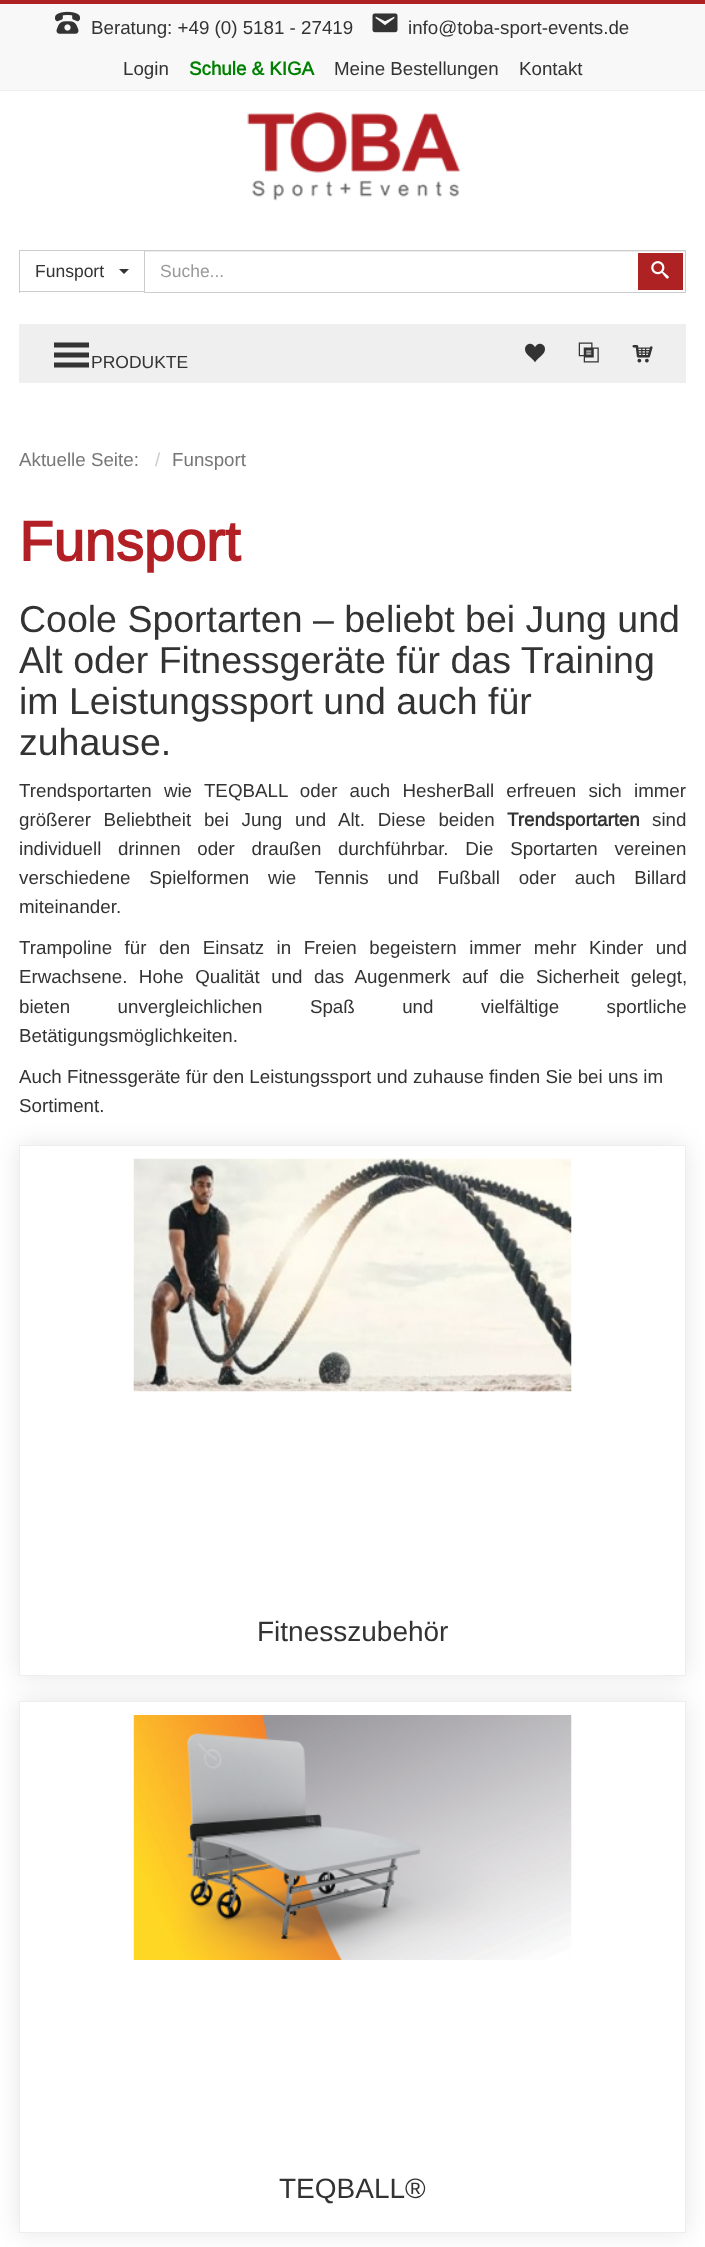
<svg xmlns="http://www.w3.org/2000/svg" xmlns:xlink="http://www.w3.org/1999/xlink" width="705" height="2247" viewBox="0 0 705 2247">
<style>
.cls-1{font:18.75px Arimo;fill:#333333}
.cls-2{font:bold 18.75px Arimo;fill:#008000}
.cls-3{font:17.5px Arimo;fill:#333333}
.cls-4{font:17.5px Arimo;fill:#999999}
.cls-5{font:18.75px Arimo;fill:#777777}
.cls-6{font:18.75px Arimo;fill:#cccccc}
.cls-7{font:bold 56px Arimo;fill:#b22025}
.cls-8{font:37.5px Arimo;fill:#333333}
.cls-9{font:bold 18.75px Arimo;fill:#333333}
.cls-10{font:28px Arimo;fill:#333333}
</style>
<defs>
<clipPath id="clip1"><path d="M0 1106H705V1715H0ZM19 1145H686V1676H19Z" clip-rule="evenodd"/></clipPath>
</defs>
<rect width="100%" height="100%" fill="#ffffff"/>
<rect fill="#f8f8f8" x="0" y="4" width="705" height="86"/>
<rect fill="#ae2224" x="0" y="0" width="705" height="4"/>
<rect fill="#eeeeee" x="0" y="90" width="705" height="1"/>
<image xlink:href="image0.png" x="55" y="11" width="25" height="23"/>
<image xlink:href="image1.png" x="372" y="13" width="26" height="20"/>
<image xlink:href="image2.png" x="247" y="112" width="213" height="89"/>
<rect fill="#cccccc" x="19" y="250" width="125" height="1"/>
<rect fill="#cccccc" x="19" y="291" width="125" height="1"/>
<rect fill="#cccccc" x="19" y="250" width="1" height="43"/>
<path fill="#333333" d="M119 269H129L124 274Z"/>
<rect fill="#ececec" x="145" y="251" width="540" height="1"/>
<rect fill="none" stroke="#cccccc" x="144.5" y="250.5" width="541" height="42"/>
<rect fill="#ae2224" x="638" y="253" width="45" height="37"/>
<image xlink:href="image3.png" x="651" y="261" width="18" height="18"/>
<rect fill="#efefef" x="19" y="324" width="667" height="59"/>
<path fill="#333333" d="M54 342.5H89V347.5H54ZM54 352.5H89V357.5H54ZM54 362.5H89V367.5H54Z"/>
<image xlink:href="image4.png" x="525" y="343" width="20" height="20"/>
<image xlink:href="image5.png" x="578" y="342" width="21" height="21"/>
<image xlink:href="image6.png" x="632" y="345" width="21" height="18"/>
<g clip-path="url(#clip1)">
<rect fill="#000000" fill-opacity="0.1" filter="blur(12.5px)" x="19" y="1145" width="667" height="531"/>
</g>
<rect fill="none" stroke="#eeeeee" x="19.5" y="1145.5" width="666" height="530"/>
<image xlink:href="image7.png" x="133" y="1158" width="439" height="234"/>
<rect fill="#000000" fill-opacity="0.1" filter="blur(12.5px)" x="19" y="1701" width="667" height="532"/>
<rect fill="#ffffff" stroke="#eeeeee" x="19.5" y="1701.5" width="666" height="531"/>
<image xlink:href="image8.png" x="133" y="1715" width="439" height="245"/>
<text class="cls-1" x="91" y="34">Beratung: +49 (0) 5181 - 27419</text>
<text class="cls-1" x="408" y="34">info@toba-sport-events.de</text>
<text class="cls-1" x="123" y="75">Login</text>
<text class="cls-2" x="189" y="75">Schule &amp; KIGA</text>
<text class="cls-1" x="334" y="75">Meine Bestellungen</text>
<text class="cls-1" x="519" y="75">Kontakt</text>
<text class="cls-3" x="35" y="277">Funsport</text>
<text class="cls-4" x="160" y="277">Suche...</text>
<text class="cls-3" x="91" y="368">PRODUKTE</text>
<text class="cls-5" x="19" y="466">Aktuelle Seite:</text>
<text class="cls-6" x="155" y="466">/</text>
<text class="cls-5" x="172" y="466">Funsport</text>
<text class="cls-7" x="19" y="561">Funsport</text>
<text class="cls-8"><tspan x="19" y="632">Coole Sportarten – beliebt bei Jung und</tspan><tspan x="19" y="673">Alt oder Fitnessgeräte für das Training</tspan><tspan x="19" y="714">im Leistungssport und auch für</tspan><tspan x="19" y="755">zuhause.</tspan></text>
<text class="cls-1"><tspan x="19" y="797" word-spacing="7">Trendsportarten wie TEQBALL oder auch HesherBall erfreuen sich immer</tspan><tspan x="19" y="826" word-spacing="7.5">größerer Beliebtheit bei Jung und Alt. Diese beiden</tspan></text>
<text class="cls-9" x="507" y="826">Trendsportarten</text>
<text class="cls-1" x="652" y="826">sind</text>
<text class="cls-1"><tspan x="19" y="855" word-spacing="11.5">individuell drinnen oder draußen durchführbar. Die Sportarten vereinen</tspan><tspan x="19" y="884" word-spacing="13.5">verschiedene Spielformen wie Tennis und Fußball oder auch Billard</tspan><tspan x="19" y="913">miteinander.</tspan></text>
<text class="cls-1"><tspan x="19" y="954" word-spacing="7.25">Trampoline für den Einsatz in Freien begeistern immer mehr Kinder und</tspan><tspan x="19" y="983" word-spacing="6.25">Erwachsene. Hohe Qualität und das Augenmerk auf die Sicherheit gelegt,</tspan><tspan x="19" y="1013" word-spacing="42.25">bieten unvergleichlichen Spaß und vielfältige sportliche</tspan><tspan x="19" y="1042">Betätigungsmöglichkeiten.</tspan></text>
<text class="cls-1"><tspan x="19" y="1083">Auch Fitnessgeräte für den Leistungssport und zuhause finden Sie bei uns im</tspan><tspan x="19" y="1112">Sortiment.</tspan></text>
<text class="cls-10" x="257" y="1641">Fitnesszubehör</text>
<text class="cls-10" x="279" y="2198">TEQBALL®</text>
</svg>
